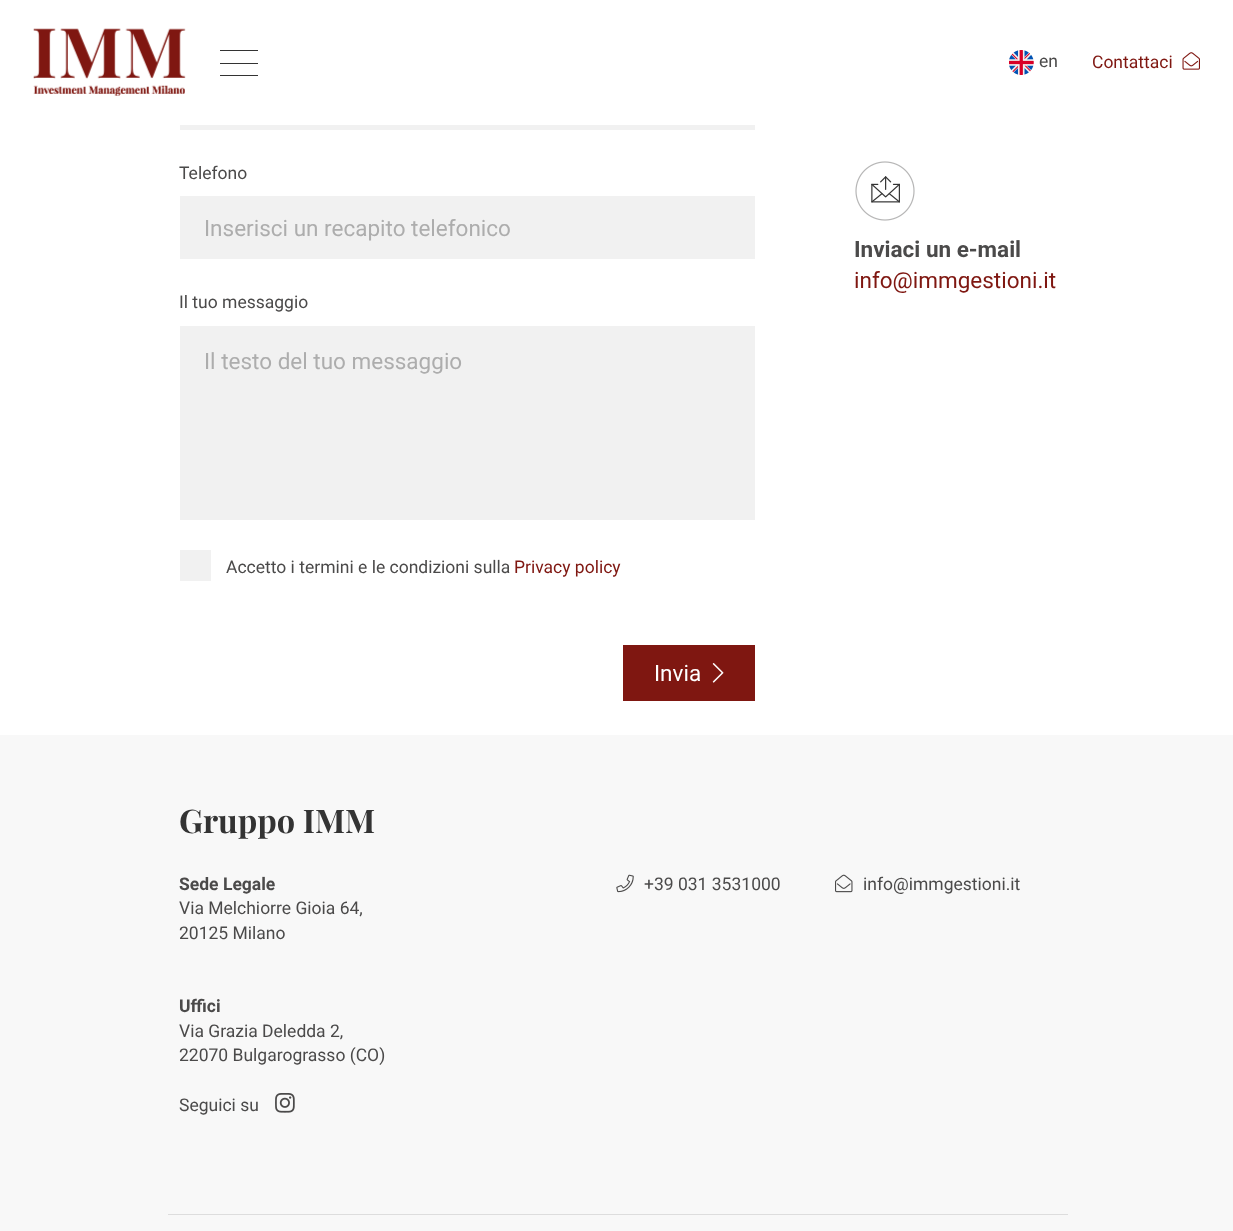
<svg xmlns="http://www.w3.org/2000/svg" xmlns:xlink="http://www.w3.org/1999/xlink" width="1233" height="1231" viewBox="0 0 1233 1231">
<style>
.cls-1{font:17.5px Roboto;fill:#4b4a4a}
.cls-2{font:17.5px Roboto;fill:#7f1711}
.cls-3{font:22.5px Roboto;fill:#adadad}
.cls-4{font:22.5px Roboto;fill:#ffffff}
.cls-5{font:bold 22.5px Roboto;fill:#4b4a4a}
.cls-6{font:22.5px Roboto;fill:#7f1711}
.cls-7{font:bold 32.5px Playfair Display;fill:#333333}
.cls-8{font:bold 17.5px Roboto;fill:#4b4a4a}
</style>
<rect width="100%" height="100%" fill="#ffffff"/>
<image xlink:href="image0.png" x="33" y="28" width="153" height="68"/>
<rect fill="#333333" x="220" y="63" width="38" height="1"/>
<rect fill="#333333" x="220" y="50" width="38" height="1"/>
<rect fill="#333333" x="220" y="75" width="38" height="1"/>
<image xlink:href="image1.png" x="1009" y="50" width="25" height="25"/>
<image xlink:href="image2.png" x="1182" y="52" width="18" height="18"/>
<rect fill="#f1f1f1" x="180" y="125" width="575" height="5"/>
<rect fill="#f1f1f1" x="180" y="196" width="575" height="63"/>
<rect fill="#f1f1f1" x="180" y="326" width="575" height="194"/>
<rect fill="#f1f1f1" x="180" y="550" width="31" height="31"/>
<rect fill="#7f1711" x="623" y="645" width="132" height="56"/>
<image xlink:href="image3.png" x="712" y="663" width="12" height="20"/>
<image xlink:href="image4.png" x="855" y="161" width="60" height="60"/>
<rect fill="#f8f8f8" x="0" y="735" width="1233" height="496"/>
<image xlink:href="image5.png" x="616" y="874" width="18" height="19"/>
<image xlink:href="image6.png" x="835" y="874" width="18" height="19"/>
<image xlink:href="image7.png" x="275" y="1093" width="20" height="20"/>
<rect fill="#dddddd" x="168" y="1214" width="900" height="1"/>
<text class="cls-1" x="1039" y="67">en</text>
<text class="cls-2" x="1092" y="68">Contattaci</text>
<text class="cls-1" x="179" y="179">Telefono</text>
<text class="cls-3" x="204" y="236">Inserisci un recapito telefonico</text>
<text class="cls-1" x="179" y="308">Il tuo messaggio</text>
<text class="cls-3" x="204" y="369">Il testo del tuo messaggio</text>
<text class="cls-1" x="226" y="573">Accetto i termini e le condizioni sulla</text>
<text class="cls-2" x="514" y="573">Privacy policy</text>
<text class="cls-4" x="654" y="681">Invia</text>
<text class="cls-5" x="854" y="257">Inviaci un e-mail</text>
<text class="cls-6" x="854" y="288">info@immgestioni.it</text>
<text class="cls-7" x="179" y="833">Gruppo IMM</text>
<text class="cls-8" x="179" y="890">Sede Legale</text>
<text class="cls-1"><tspan x="179" y="914">Via Melchiorre Gioia 64,</tspan><tspan x="179" y="939">20125 Milano</tspan></text>
<text class="cls-8" x="179" y="1012">Uffici</text>
<text class="cls-1"><tspan x="179" y="1037">Via Grazia Deledda 2,</tspan><tspan x="179" y="1061">22070 Bulgarograsso (CO)</tspan></text>
<text class="cls-1" x="644" y="890">+39 031 3531000</text>
<text class="cls-1" x="863" y="890">info@immgestioni.it</text>
<text class="cls-1" x="179" y="1111">Seguici su</text>
</svg>
